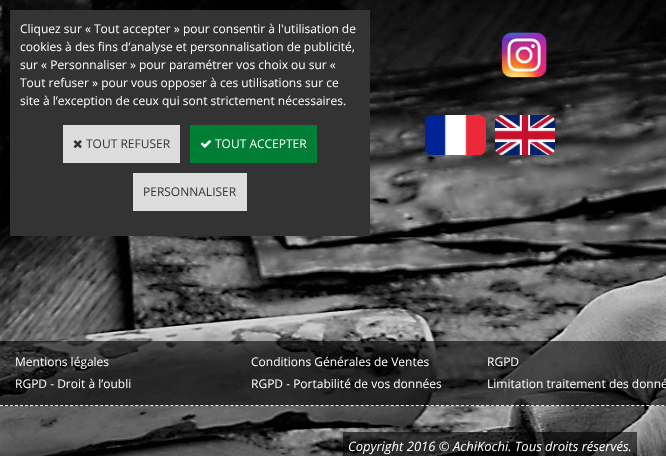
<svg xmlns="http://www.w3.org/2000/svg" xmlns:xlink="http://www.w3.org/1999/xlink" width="666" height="456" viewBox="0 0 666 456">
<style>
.cls-1{font:12px Open Sans;fill:#ffffff}
.cls-2{font:12px Open Sans;fill:#333333}
.cls-3{font:italic 13px Open Sans;fill:#ffffff}
</style>
<rect width="100%" height="100%" fill="#ffffff"/>
<image xlink:href="image0.png" x="0" y="0" width="666" height="456"/>
<rect fill="#333333" x="10" y="10" width="360" height="226"/>
<rect fill="#dddddd" x="63" y="125" width="117" height="38"/>
<image xlink:href="image1.png" x="73" y="140" width="9" height="9"/>
<rect fill="#007e33" x="190" y="125" width="127" height="38"/>
<image xlink:href="image2.png" x="200" y="140" width="12" height="8"/>
<rect fill="#dddddd" x="133" y="173" width="114" height="38"/>
<image xlink:href="image3.png" x="501" y="32" width="46" height="46"/>
<image xlink:href="image4.png" x="425" y="115" width="61" height="40"/>
<image xlink:href="image5.png" x="495" y="115" width="60" height="40"/>
<rect fill="#000000" fill-opacity="0.6" x="0" y="341" width="666" height="65"/>
<path fill="none" stroke="#ffffff" stroke-dasharray="3 2.01" d="M0 405.5H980"/>
<rect fill="#000000" fill-opacity="0.6" x="343" y="432" width="294" height="24"/>
<text class="cls-1"><tspan x="20" y="33">Cliquez sur « Tout accepter » pour consentir à l'utilisation de</tspan><tspan x="20" y="51">cookies à des fins d’analyse et personnalisation de publicité,</tspan><tspan x="20" y="69">sur « Personnaliser » pour paramétrer vos choix ou sur «</tspan><tspan x="20" y="87">Tout refuser » pour vous opposer à ces utilisations sur ce</tspan><tspan x="20" y="105">site à l’exception de ceux qui sont strictement nécessaires.</tspan></text>
<text class="cls-2" x="86" y="148">TOUT REFUSER</text>
<text class="cls-1" x="215" y="148">TOUT ACCEPTER</text>
<text class="cls-2" x="143" y="196">PERSONNALISER</text>
<text class="cls-1" x="15" y="366">Mentions légales</text>
<text class="cls-1" x="251" y="366">Conditions Générales de Ventes</text>
<text class="cls-1" x="487" y="366">RGPD</text>
<text class="cls-1" x="15" y="388">RGPD - Droit à l’oubli</text>
<text class="cls-1" x="251" y="388">RGPD - Portabilité de vos données</text>
<text class="cls-1" x="487" y="388">Limitation traitement des donné</text>
<text class="cls-3" x="348" y="451">Copyright 2016 © AchiKochi. Tous droits réservés.</text>
</svg>
